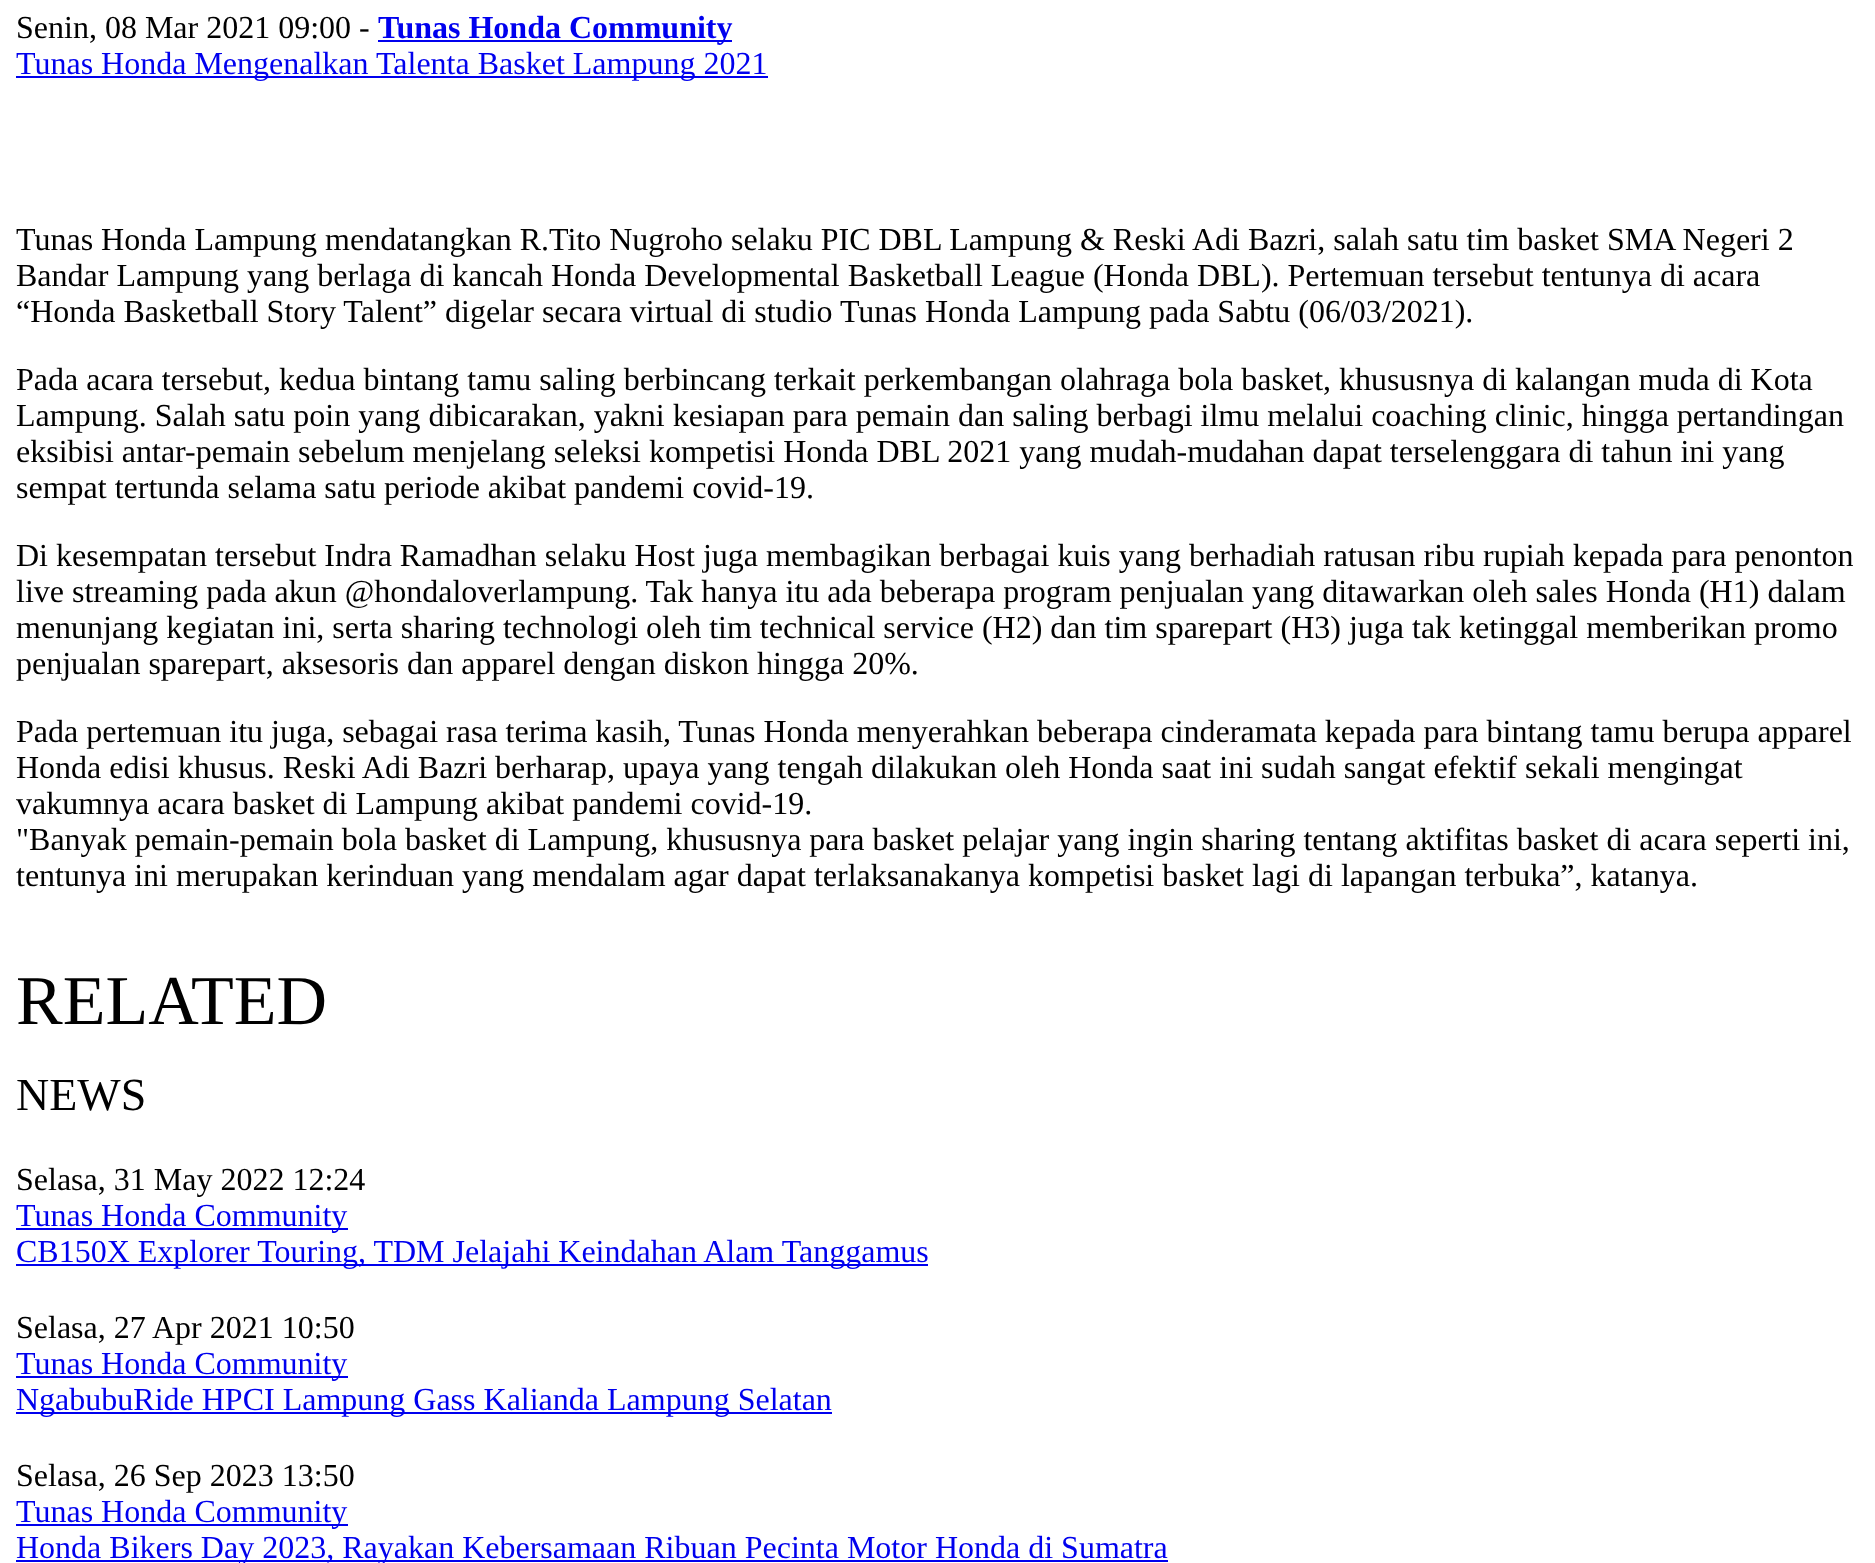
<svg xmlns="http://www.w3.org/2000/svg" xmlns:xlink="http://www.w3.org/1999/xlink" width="1875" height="1563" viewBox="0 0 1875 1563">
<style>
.cls-1{font:32px Liberation Serif;fill:#000000}
.cls-2{font:bold 32px Liberation Serif;fill:#0000ee}
.cls-3{font:32px Liberation Serif;fill:#0000ee}
.cls-4{font:70px Liberation Serif;fill:#000000}
.cls-5{font:46px Liberation Serif;fill:#000000}
</style>
<rect width="100%" height="100%" fill="#ffffff"/>
<rect fill="#0000ee" x="378" y="40" width="354" height="2"/>
<rect fill="#0000ee" x="16" y="76" width="752" height="2"/>
<rect fill="#0000ee" x="16" y="1228" width="332" height="2"/>
<rect fill="#0000ee" x="16" y="1264" width="912" height="2"/>
<rect fill="#0000ee" x="16" y="1376" width="332" height="2"/>
<rect fill="#0000ee" x="16" y="1412" width="816" height="2"/>
<rect fill="#0000ee" x="16" y="1524" width="332" height="2"/>
<rect fill="#0000ee" x="16" y="1560" width="1152" height="2"/>
<text class="cls-1" x="16" y="38">Senin, 08 Mar 2021 09:00 -</text>
<text class="cls-2" x="378" y="38">Tunas Honda Community</text>
<text class="cls-3" x="16" y="74">Tunas Honda Mengenalkan Talenta Basket Lampung 2021</text>
<text class="cls-1"><tspan x="16" y="250">Tunas Honda Lampung mendatangkan R.Tito Nugroho selaku PIC DBL Lampung &amp; Reski Adi Bazri, salah satu tim basket SMA Negeri 2</tspan><tspan x="16" y="286">Bandar Lampung yang berlaga di kancah Honda Developmental Basketball League (Honda DBL). Pertemuan tersebut tentunya di acara</tspan><tspan x="16" y="322">“Honda Basketball Story Talent” digelar secara virtual di studio Tunas Honda Lampung pada Sabtu (06/03/2021).</tspan></text>
<text class="cls-1"><tspan x="16" y="390">Pada acara tersebut, kedua bintang tamu saling berbincang terkait perkembangan olahraga bola basket, khususnya di kalangan muda di Kota</tspan><tspan x="16" y="426">Lampung. Salah satu poin yang dibicarakan, yakni kesiapan para pemain dan saling berbagi ilmu melalui coaching clinic, hingga pertandingan</tspan><tspan x="16" y="462">eksibisi antar-pemain sebelum menjelang seleksi kompetisi Honda DBL 2021 yang mudah-mudahan dapat terselenggara di tahun ini yang</tspan><tspan x="16" y="498">sempat tertunda selama satu periode akibat pandemi covid-19.</tspan></text>
<text class="cls-1"><tspan x="16" y="566">Di kesempatan tersebut Indra Ramadhan selaku Host juga membagikan berbagai kuis yang berhadiah ratusan ribu rupiah kepada para penonton</tspan><tspan x="16" y="602">live streaming pada akun @hondaloverlampung. Tak hanya itu ada beberapa program penjualan yang ditawarkan oleh sales Honda (H1) dalam</tspan><tspan x="16" y="638">menunjang kegiatan ini, serta sharing technologi oleh tim technical service (H2) dan tim sparepart (H3) juga tak ketinggal memberikan promo</tspan><tspan x="16" y="674">penjualan sparepart, aksesoris dan apparel dengan diskon hingga 20%.</tspan></text>
<text class="cls-1"><tspan x="16" y="742">Pada pertemuan itu juga, sebagai rasa terima kasih, Tunas Honda menyerahkan beberapa cinderamata kepada para bintang tamu berupa apparel</tspan><tspan x="16" y="778">Honda edisi khusus. Reski Adi Bazri berharap, upaya yang tengah dilakukan oleh Honda saat ini sudah sangat efektif sekali mengingat</tspan><tspan x="16" y="814">vakumnya acara basket di Lampung akibat pandemi covid-19.</tspan><tspan x="16" y="850">"Banyak pemain-pemain bola basket di Lampung, khususnya para basket pelajar yang ingin sharing tentang aktifitas basket di acara seperti ini,</tspan><tspan x="16" y="886">tentunya ini merupakan kerinduan yang mendalam agar dapat terlaksanakanya kompetisi basket lagi di lapangan terbuka”, katanya.</tspan></text>
<text class="cls-4" x="16" y="1024">RELATED</text>
<text class="cls-5" x="16" y="1110">NEWS</text>
<text class="cls-1" x="16" y="1190">Selasa, 31 May 2022 12:24</text>
<text class="cls-3"><tspan x="16" y="1226">Tunas Honda Community</tspan><tspan x="16" y="1262">CB150X Explorer Touring, TDM Jelajahi Keindahan Alam Tanggamus</tspan></text>
<text class="cls-1" x="16" y="1338">Selasa, 27 Apr 2021 10:50</text>
<text class="cls-3"><tspan x="16" y="1374">Tunas Honda Community</tspan><tspan x="16" y="1410">NgabubuRide HPCI Lampung Gass Kalianda Lampung Selatan</tspan></text>
<text class="cls-1" x="16" y="1486">Selasa, 26 Sep 2023 13:50</text>
<text class="cls-3"><tspan x="16" y="1522">Tunas Honda Community</tspan><tspan x="16" y="1558">Honda Bikers Day 2023, Rayakan Kebersamaan Ribuan Pecinta Motor Honda di Sumatra</tspan></text>
</svg>
